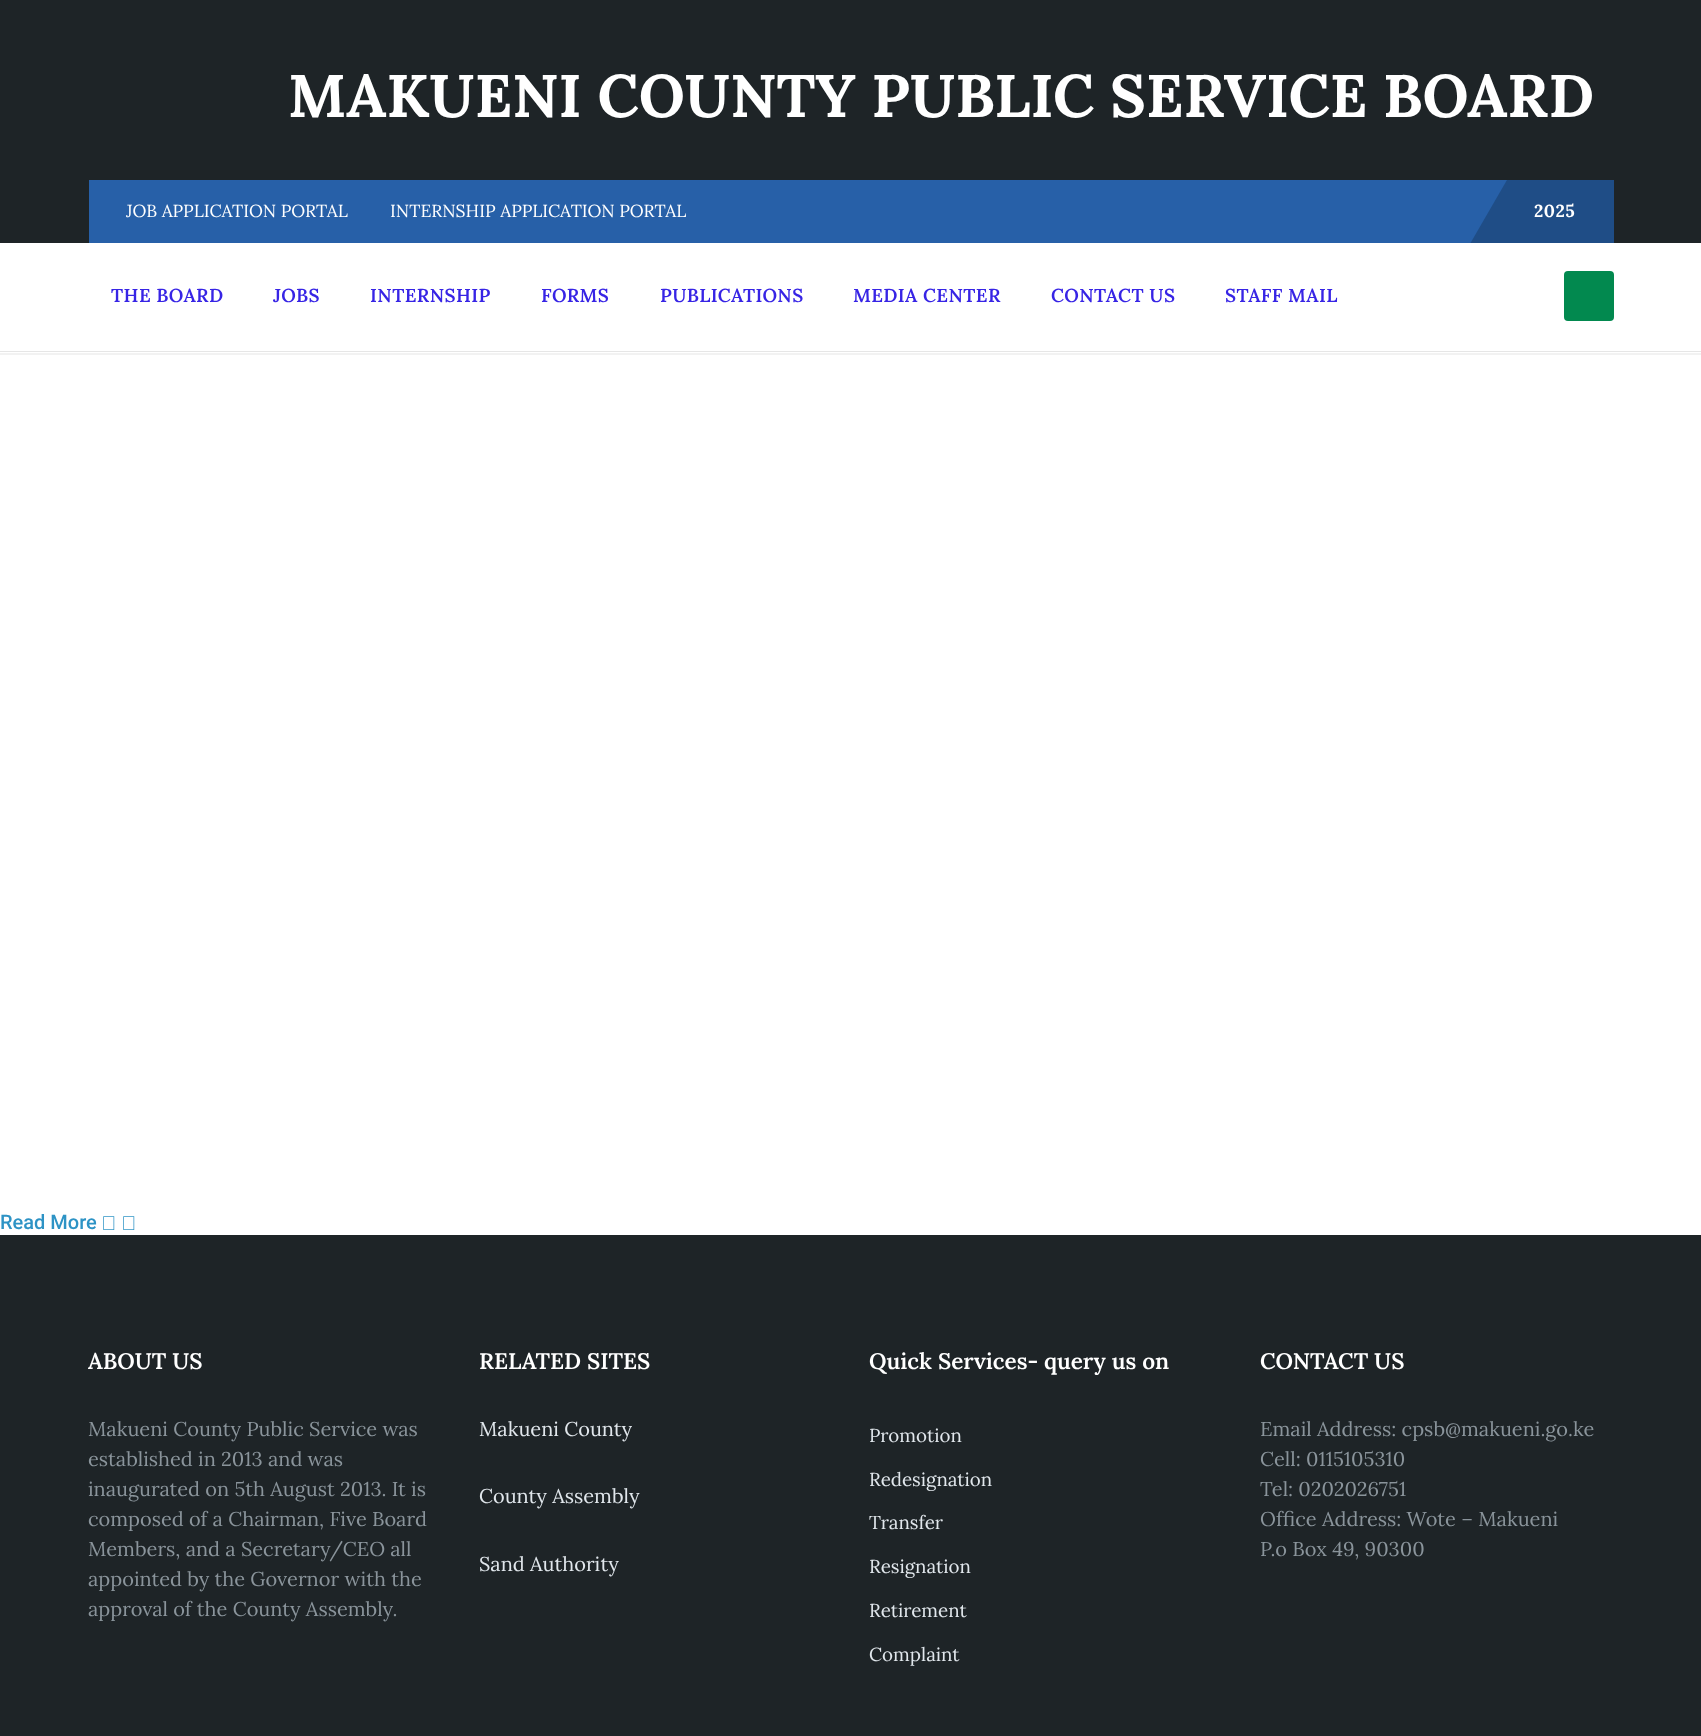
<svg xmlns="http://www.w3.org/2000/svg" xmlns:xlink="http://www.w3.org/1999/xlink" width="1701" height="1736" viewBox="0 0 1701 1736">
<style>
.cls-1{font:bold 60px Lora;fill:#ffffff}
.cls-2{font:17.5px Lora;fill:#ffffff}
.cls-3{font:bold 17.5px Lora;letter-spacing:0.5px;fill:#ffffff}
.cls-4{font:600 18.75px Lora;letter-spacing:0.4px;fill:#3724e5}
.cls-5{font:500 20px Roboto;fill:#2d93c5}
.cls-6{font:600 22.5px Lora;fill:#ffffff}
.cls-7{font:20px Lora;fill:#8a949b}
.cls-8{font:20px Lora;fill:#e1e7ec}
.cls-9{font:18.75px Lora;fill:#e1e7ec}
</style>
<defs>
<clipPath id="clip1"><rect x="89" y="180" width="1525" height="63"/></clipPath>
</defs>
<rect width="100%" height="100%" fill="#ffffff"/>
<rect fill="none" stroke="#f2f2f2" stroke-width="3" x="-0.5" y="241.5" width="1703" height="112"/>
<rect fill="#1e2427" x="0" y="0" width="1701" height="243"/>
<rect fill="#2760a8" x="89" y="180" width="1418" height="63"/>
<g clip-path="url(#clip1)">
<path fill="#1f4d86" d="M1588 40L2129 352L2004 569L1463 256Z"/>
</g>
<rect fill="#ffffff" x="0" y="243" width="1701" height="110"/>
<rect fill="#e6e6e6" x="0" y="351" width="1701" height="1"/>
<rect fill="#02894f" x="1564" y="271" width="50" height="50" rx="4"/>
<image xlink:href="image0.png" x="103" y="1216" width="12" height="14"/>
<image xlink:href="image0.png" x="123" y="1216" width="12" height="14"/>
<rect fill="#1e2427" x="0" y="1235" width="1701" height="501"/>
<text class="cls-1" x="288" y="117">MAKUENI COUNTY PUBLIC SERVICE BOARD</text>
<text class="cls-2" x="126" y="217">JOB APPLICATION PORTAL</text>
<text class="cls-2" x="390" y="217">INTERNSHIP APPLICATION PORTAL</text>
<text class="cls-3" x="1534" y="217">2025</text>
<text class="cls-4" x="111" y="302">THE BOARD</text>
<text class="cls-4" x="273" y="302">JOBS</text>
<text class="cls-4" x="370" y="302">INTERNSHIP</text>
<text class="cls-4" x="541" y="302">FORMS</text>
<text class="cls-4" x="660" y="302">PUBLICATIONS</text>
<text class="cls-4" x="853" y="302">MEDIA CENTER</text>
<text class="cls-4" x="1051" y="302">CONTACT US</text>
<text class="cls-4" x="1225" y="302">STAFF MAIL</text>
<text class="cls-5" x="0" y="1229">Read More</text>
<text class="cls-6" x="88" y="1369">ABOUT US</text>
<text class="cls-7"><tspan x="88" y="1436">Makueni County Public Service was</tspan><tspan x="88" y="1466">established in 2013 and was</tspan><tspan x="88" y="1496">inaugurated on 5th August 2013. It is</tspan><tspan x="88" y="1526">composed of a Chairman, Five Board</tspan><tspan x="88" y="1556">Members, and a Secretary/CEO all</tspan><tspan x="88" y="1586">appointed by the Governor with the</tspan><tspan x="88" y="1616">approval of the County Assembly.</tspan></text>
<text class="cls-6" x="479" y="1369">RELATED SITES</text>
<text class="cls-8" x="479" y="1436">Makueni County</text>
<text class="cls-8" x="479" y="1503">County Assembly</text>
<text class="cls-8" x="479" y="1571">Sand Authority</text>
<text class="cls-6" x="869" y="1369">Quick Services- query us on</text>
<text class="cls-9" x="869" y="1442">Promotion</text>
<text class="cls-9" x="869" y="1486">Redesignation</text>
<text class="cls-9" x="869" y="1529">Transfer</text>
<text class="cls-9" x="869" y="1573">Resignation</text>
<text class="cls-9" x="869" y="1617">Retirement</text>
<text class="cls-9" x="869" y="1661">Complaint</text>
<text class="cls-6" x="1260" y="1369">CONTACT US</text>
<text class="cls-7"><tspan x="1260" y="1436">Email Address: cpsb@makueni.go.ke</tspan><tspan x="1260" y="1466">Cell: 0115105310</tspan><tspan x="1260" y="1496">Tel: 0202026751</tspan><tspan x="1260" y="1526">Office Address: Wote – Makueni</tspan><tspan x="1260" y="1556">P.o Box 49, 90300</tspan></text>
</svg>
